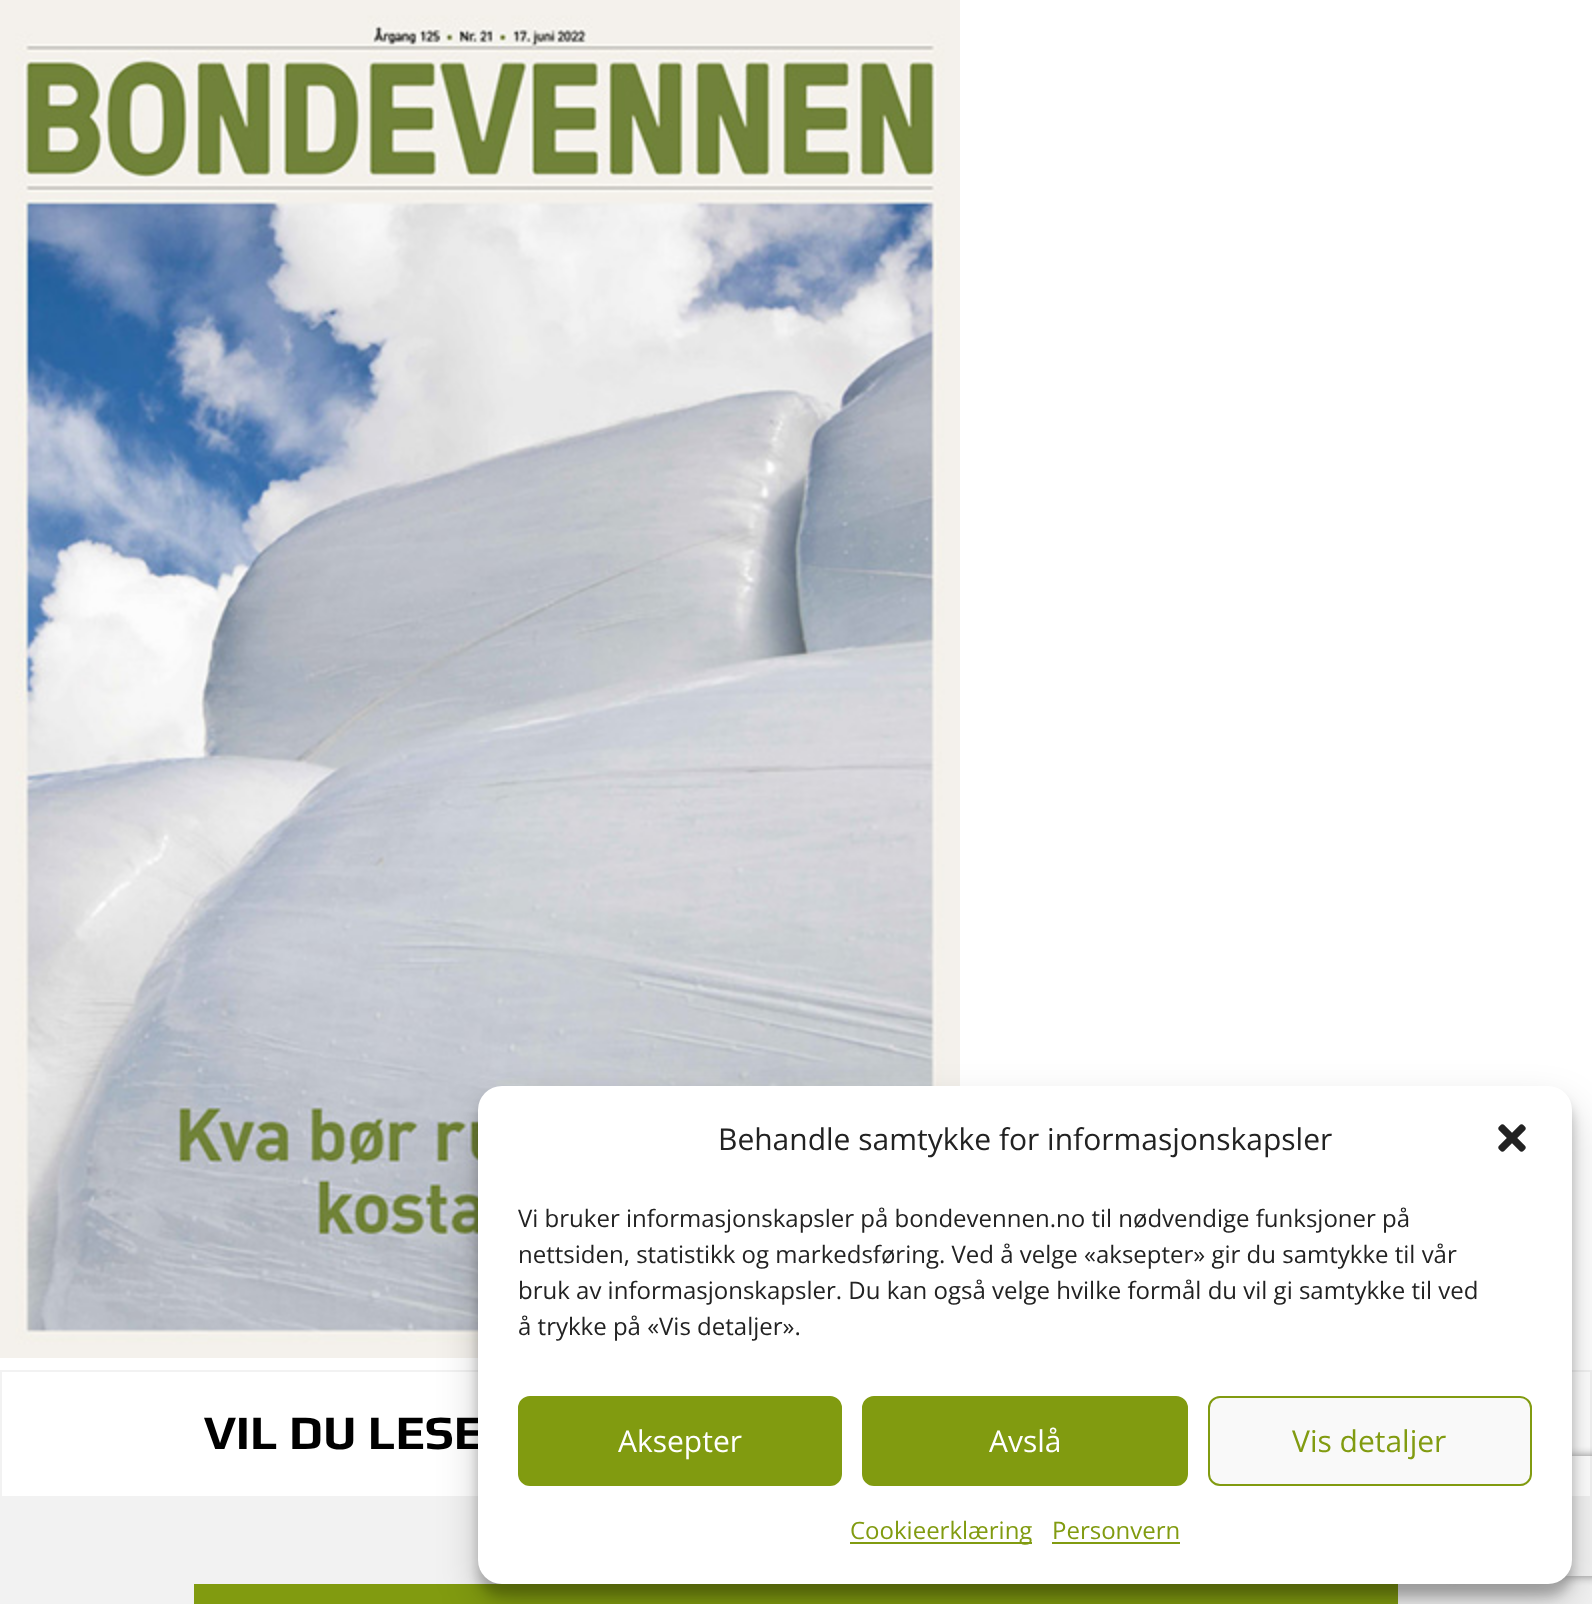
<svg xmlns="http://www.w3.org/2000/svg" xmlns:xlink="http://www.w3.org/1999/xlink" width="1592" height="1604" viewBox="0 0 1592 1604">
<style>
.cls-1{font:bold 48px Play;fill:#000000}
.cls-2{font:30px Open Sans;fill:#222222}
.cls-3{font:24px Open Sans;fill:#222222}
.cls-4{font:30px Open Sans;fill:#ffffff}
.cls-5{font:30px Open Sans;fill:#819b10}
.cls-6{font:24px Open Sans;fill:#819b10}
</style>
<defs>
<clipPath id="clip1"><path d="M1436 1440H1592V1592H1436ZM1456 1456H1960C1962 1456 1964 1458 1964 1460V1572C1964 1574 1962 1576 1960 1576H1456C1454 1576 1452 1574 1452 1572V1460C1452 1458 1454 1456 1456 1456Z" clip-rule="evenodd"/></clipPath>
</defs>
<rect width="100%" height="100%" fill="#ffffff"/>
<image xlink:href="image0.png" x="0" y="0" width="960" height="1358"/>
<rect fill="none" stroke="#f2f2f2" stroke-width="2" x="1" y="1371" width="1590" height="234"/>
<rect fill="#f2f2f2" x="2" y="1496" width="1588" height="108"/>
<rect fill="#819b10" x="194" y="1584" width="1204" height="20"/>
<rect fill="#000000" fill-opacity="0.23" filter="blur(6px)" x="478" y="1098" width="1094" height="498" rx="24"/>
<rect fill="#000000" fill-opacity="0.19" filter="blur(20px)" x="478" y="1106" width="1094" height="498" rx="24"/>
<g clip-path="url(#clip1)">
<rect fill="#808080" filter="blur(5px)" x="1452" y="1456" width="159" height="120" rx="4"/>
</g>
<text class="cls-1" x="204" y="1449">VIL DU LESE</text>
<rect fill="#ffffff" x="478" y="1086" width="1094" height="498" rx="24"/>
<text class="cls-2" x="718" y="1150">Behandle samtykke for informasjonskapsler</text>
<image xlink:href="image1.png" x="1498" y="1124" width="28" height="28"/>
<text class="cls-3"><tspan x="518" y="1227">Vi bruker informasjonskapsler på bondevennen.no til nødvendige funksjoner på</tspan><tspan x="518" y="1263">nettsiden, statistikk og markedsføring. Ved å velge «aksepter» gir du samtykke til vår</tspan><tspan x="518" y="1299">bruk av informasjonskapsler. Du kan også velge hvilke formål du vil gi samtykke til ved</tspan><tspan x="518" y="1335">å trykke på «Vis detaljer».</tspan></text>
<rect fill="#819b10" stroke="#819b10" stroke-width="2" x="519" y="1397" width="322" height="88" rx="11"/>
<text class="cls-4" x="618" y="1452">Aksepter</text>
<rect fill="#819b10" stroke="#819b10" stroke-width="2" x="863" y="1397" width="324" height="88" rx="11"/>
<text class="cls-4" x="989" y="1452">Avslå</text>
<rect fill="#f9f9f9" stroke="#819b10" stroke-width="2" x="1209" y="1397" width="322" height="88" rx="11"/>
<text class="cls-5" x="1292" y="1452">Vis detaljer</text>
<rect fill="#819b10" x="850" y="1542" width="182" height="2"/>
<text class="cls-6" x="850" y="1539">Cookieerklæring</text>
<text class="cls-6" x="1052" y="1539">Personvern</text>
<rect fill="#819b10" x="1052" y="1542" width="128" height="2"/>
</svg>
